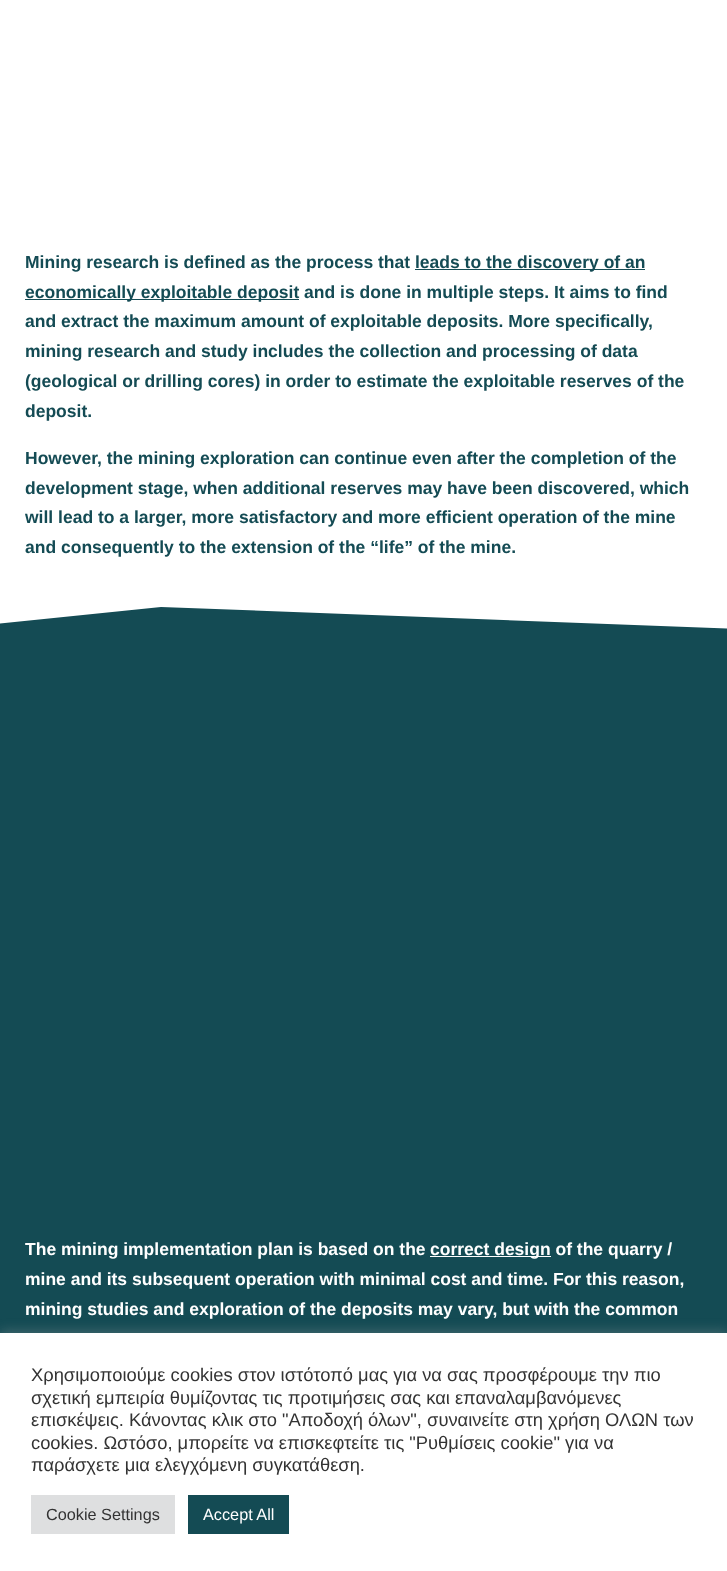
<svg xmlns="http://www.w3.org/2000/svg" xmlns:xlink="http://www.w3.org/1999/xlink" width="727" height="1571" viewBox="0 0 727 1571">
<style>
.cls-1{font:bold 17.5px Liberation Sans;fill:#144b54}
.cls-2{font:bold 17.5px Liberation Sans;fill:#ffffff}
.cls-3{font:18.35px Liberation Sans;fill:#333333}
.cls-4{font:16.25px Liberation Sans;fill:#333333}
.cls-5{font:16.25px Liberation Sans;fill:#ffffff}
</style>
<rect width="100%" height="100%" fill="#ffffff"/>
<rect fill="#144b54" x="415" y="269" width="230" height="1"/>
<rect fill="#144b54" x="25" y="299" width="274" height="1"/>
<path fill="#144b54" d="M161 607L-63 630V632H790V631Z"/>
<rect fill="#144b54" x="0" y="632" width="727" height="701"/>
<rect fill="#ffffff" x="430" y="1256" width="121" height="1"/>
<rect fill="#acabab" fill-opacity="0.3" filter="blur(6px)" x="0" y="1331" width="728" height="239"/>
<rect fill="#ffffff" x="0" y="1333" width="727" height="238"/>
<rect fill="#dedfe0" x="31" y="1495" width="144" height="39"/>
<rect fill="#144b54" x="188" y="1495" width="101" height="39"/>
<text class="cls-1" x="25" y="268">Mining research is defined as the process that</text>
<text class="cls-1" x="415" y="268">leads to the discovery of an</text>
<text class="cls-1"><tspan x="25" y="298">economically exploitable deposit and is done in multiple steps. It aims to find</tspan><tspan x="25" y="327">and extract the maximum amount of exploitable deposits. More specifically,</tspan><tspan x="25" y="357">mining research and study includes the collection and processing of data</tspan><tspan x="25" y="387">(geological or drilling cores) in order to estimate the exploitable reserves of the</tspan><tspan x="25" y="417">deposit.</tspan></text>
<text class="cls-1"><tspan x="25" y="464">However, the mining exploration can continue even after the completion of the</tspan><tspan x="25" y="494">development stage, when additional reserves may have been discovered, which</tspan><tspan x="25" y="523">will lead to a larger, more satisfactory and more efficient operation of the mine</tspan><tspan x="25" y="553">and consequently to the extension of the “life” of the mine.</tspan></text>
<text class="cls-2" x="25" y="1255">The mining implementation plan is based on the</text>
<text class="cls-2" x="430" y="1255">correct design of the quarry /</text>
<text class="cls-2"><tspan x="25" y="1285">mine and its subsequent operation with minimal cost and time. For this reason,</tspan><tspan x="25" y="1315">mining studies and exploration of the deposits may vary, but with the common</tspan></text>
<text class="cls-3"><tspan x="31" y="1381">Χρησιμοποιούμε cookies στον ιστότοπό μας για να σας προσφέρουμε την πιο</tspan><tspan x="31" y="1404">σχετική εμπειρία θυμίζοντας τις προτιμήσεις σας και επαναλαμβανόμενες</tspan><tspan x="31" y="1426">επισκέψεις. Κάνοντας κλικ στο "Αποδοχή όλων", συναινείτε στη χρήση ΟΛΩΝ των</tspan><tspan x="31" y="1449">cookies. Ωστόσο, μπορείτε να επισκεφτείτε τις "Ρυθμίσεις cookie" για να</tspan><tspan x="31" y="1471">παράσχετε μια ελεγχόμενη συγκατάθεση.</tspan></text>
<text class="cls-4" x="46" y="1520">Cookie Settings</text>
<text class="cls-5" x="203" y="1520">Accept All</text>
</svg>
